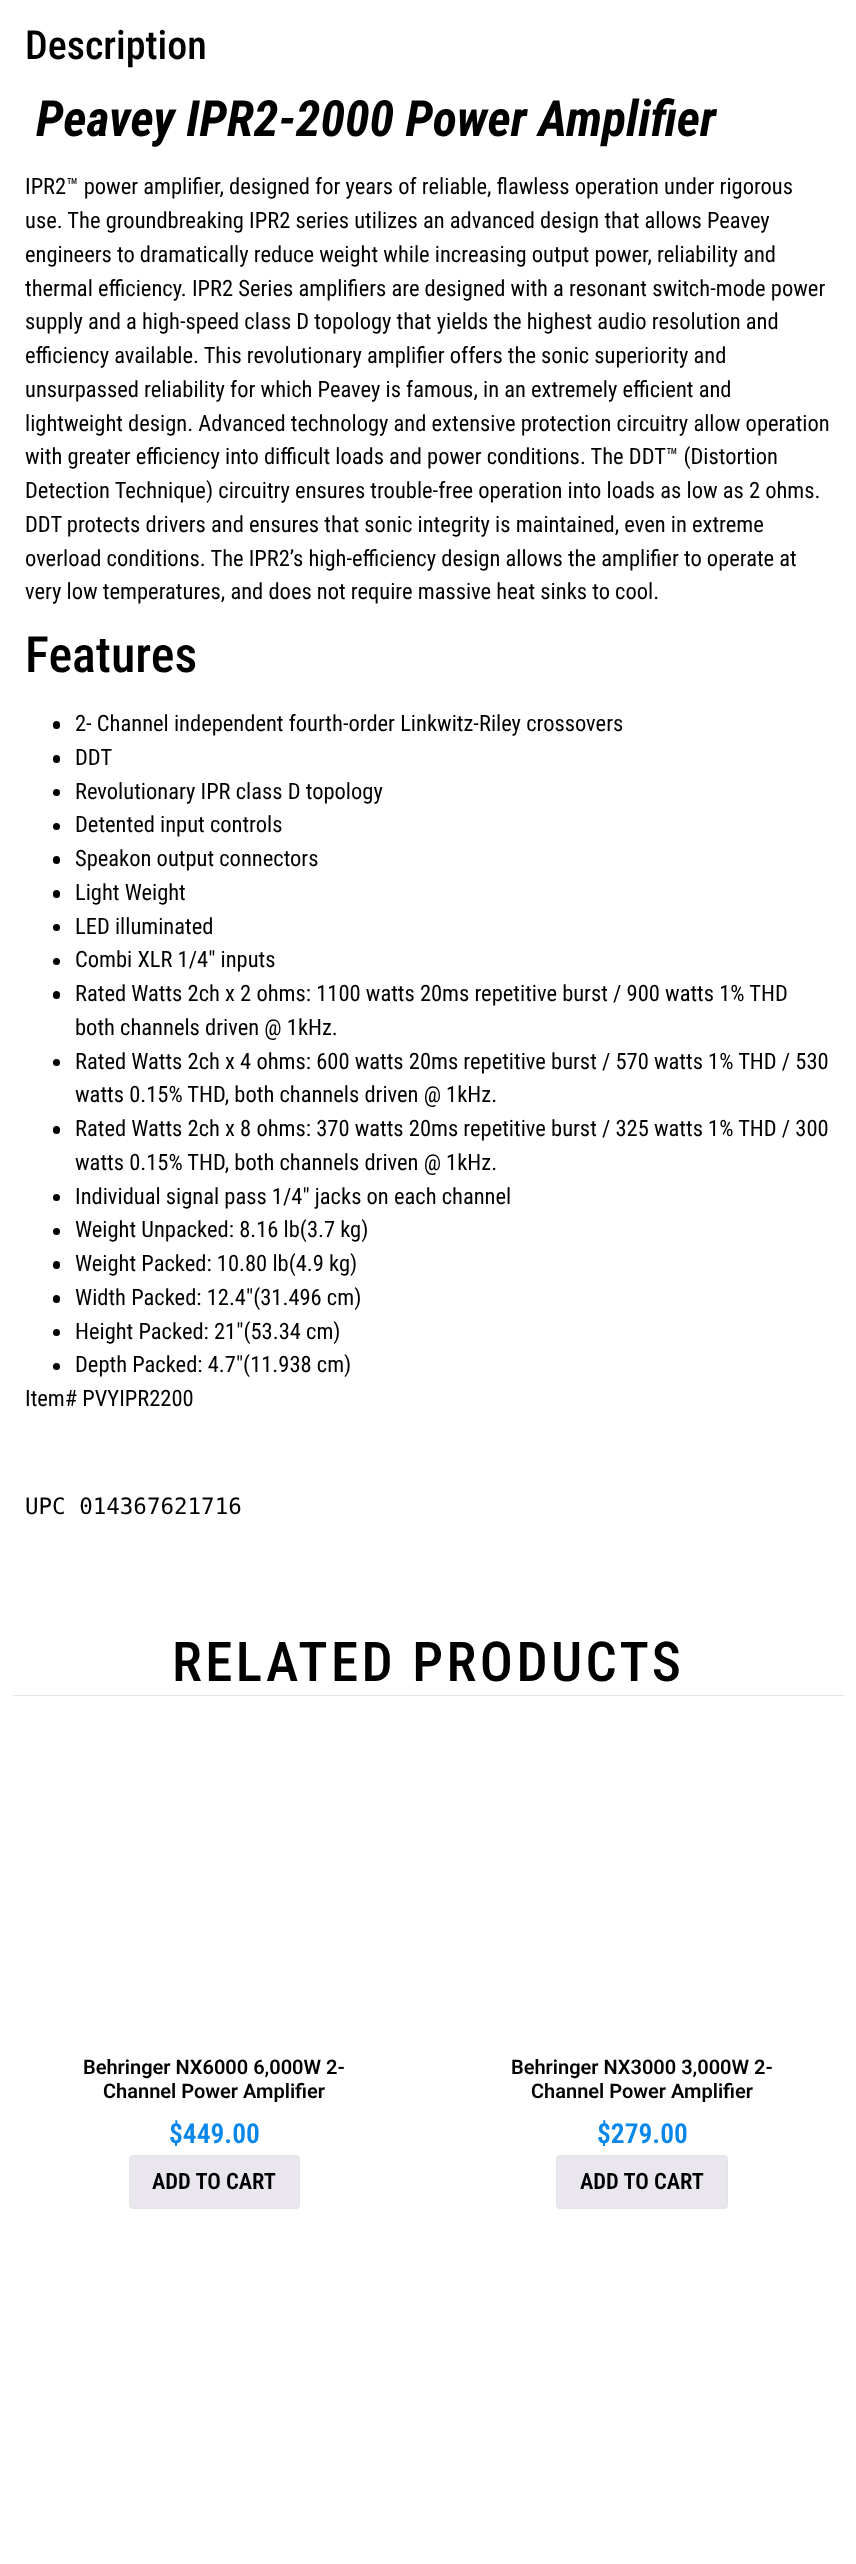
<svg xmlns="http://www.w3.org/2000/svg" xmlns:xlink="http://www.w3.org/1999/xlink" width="856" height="2564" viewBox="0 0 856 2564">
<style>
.cls-1{font:500 40px Roboto Condensed;fill:#000000}
.cls-2{font:italic bold 50px Roboto Condensed;fill:#000000}
.cls-3{font:22.5px Roboto Condensed;fill:#000000}
.cls-4{font:500 50px Roboto Condensed;fill:#000000}
.cls-5{font:22.5px DejaVu Sans Mono;fill:#000000}
.cls-6{font:500 55px Roboto Condensed;letter-spacing:3.4px;fill:#000000}
.cls-7{font:600 20px Roboto;fill:#000000}
.cls-8{font:600 27.5px Roboto Condensed;fill:#0787ea}
.cls-9{font:600 22.5px Roboto Condensed;fill:#000000}
</style>
<rect width="100%" height="100%" fill="#ffffff"/>
<rect fill="#000000" x="53" y="721" width="7" height="8" rx="3.5"/>
<rect fill="#000000" x="53" y="755" width="7" height="8" rx="3.5"/>
<circle fill="#000000" cx="56.5" cy="792.5" r="3.5"/>
<circle fill="#000000" cx="56.5" cy="826.5" r="3.5"/>
<rect fill="#000000" x="53" y="856" width="7" height="8" rx="3.5"/>
<rect fill="#000000" x="53" y="890" width="7" height="8" rx="3.5"/>
<circle fill="#000000" cx="56.5" cy="927.5" r="3.5"/>
<circle fill="#000000" cx="56.5" cy="961.5" r="3.5"/>
<rect fill="#000000" x="53" y="991" width="7" height="8" rx="3.5"/>
<circle fill="#000000" cx="56.5" cy="1062.5" r="3.5"/>
<rect fill="#000000" x="53" y="1126" width="7" height="8" rx="3.5"/>
<circle fill="#000000" cx="56.5" cy="1197.5" r="3.5"/>
<circle fill="#000000" cx="56.5" cy="1231.5" r="3.5"/>
<rect fill="#000000" x="53" y="1261" width="7" height="8" rx="3.5"/>
<rect fill="#000000" x="53" y="1295" width="7" height="8" rx="3.5"/>
<circle fill="#000000" cx="56.5" cy="1332.5" r="3.5"/>
<circle fill="#000000" cx="56.5" cy="1366.5" r="3.5"/>
<rect fill="#e4e4e4" x="13" y="1695" width="831" height="1"/>
<rect fill="#e9e6ed" stroke="#e4e4e4" x="129.5" y="2155.5" width="170" height="53" rx="3.5"/>
<rect fill="#e9e6ed" stroke="#e4e4e4" x="556.5" y="2155.5" width="171" height="53" rx="3.5"/>
<text class="cls-1" x="25" y="59">Description</text>
<text class="cls-2" x="36" y="136">Peavey IPR2-2000 Power Amplifier</text>
<text class="cls-3"><tspan x="25" y="194">IPR2™ power amplifier, designed for years of reliable, flawless operation under rigorous</tspan><tspan x="25" y="228">use. The groundbreaking IPR2 series utilizes an advanced design that allows Peavey</tspan><tspan x="25" y="262">engineers to dramatically reduce weight while increasing output power, reliability and</tspan><tspan x="25" y="296">thermal efficiency. IPR2 Series amplifiers are designed with a resonant switch-mode power</tspan><tspan x="25" y="329">supply and a high-speed class D topology that yields the highest audio resolution and</tspan><tspan x="25" y="363">efficiency available. This revolutionary amplifier offers the sonic superiority and</tspan><tspan x="25" y="397">unsurpassed reliability for which Peavey is famous, in an extremely efficient and</tspan><tspan x="25" y="431">lightweight design. Advanced technology and extensive protection circuitry allow operation</tspan><tspan x="25" y="464">with greater efficiency into difficult loads and power conditions. The DDT™ (Distortion</tspan><tspan x="25" y="498">Detection Technique) circuitry ensures trouble-free operation into loads as low as 2 ohms.</tspan><tspan x="25" y="532">DDT protects drivers and ensures that sonic integrity is maintained, even in extreme</tspan><tspan x="25" y="566">overload conditions. The IPR2’s high-efficiency design allows the amplifier to operate at</tspan><tspan x="25" y="599">very low temperatures, and does not require massive heat sinks to cool.</tspan></text>
<text class="cls-4" x="25" y="672">Features</text>
<text class="cls-3"><tspan x="75" y="731">2- Channel independent fourth-order Linkwitz-Riley crossovers</tspan><tspan x="75" y="765">DDT</tspan><tspan x="75" y="799">Revolutionary IPR class D topology</tspan><tspan x="75" y="832">Detented input controls</tspan><tspan x="75" y="866">Speakon output connectors</tspan><tspan x="75" y="900">Light Weight</tspan><tspan x="75" y="934">LED illuminated</tspan><tspan x="75" y="967">Combi XLR 1/4″ inputs</tspan><tspan x="75" y="1001">Rated Watts 2ch x 2 ohms: 1100 watts 20ms repetitive burst / 900 watts 1% THD</tspan><tspan x="75" y="1035">both channels driven @ 1kHz.</tspan><tspan x="75" y="1069">Rated Watts 2ch x 4 ohms: 600 watts 20ms repetitive burst / 570 watts 1% THD / 530</tspan><tspan x="75" y="1102">watts 0.15% THD, both channels driven @ 1kHz.</tspan><tspan x="75" y="1136">Rated Watts 2ch x 8 ohms: 370 watts 20ms repetitive burst / 325 watts 1% THD / 300</tspan><tspan x="75" y="1170">watts 0.15% THD, both channels driven @ 1kHz.</tspan><tspan x="75" y="1204">Individual signal pass 1/4″ jacks on each channel</tspan><tspan x="75" y="1237">Weight Unpacked: 8.16 lb(3.7 kg)</tspan><tspan x="75" y="1271">Weight Packed: 10.80 lb(4.9 kg)</tspan><tspan x="75" y="1305">Width Packed: 12.4″(31.496 cm)</tspan><tspan x="75" y="1339">Height Packed: 21″(53.34 cm)</tspan><tspan x="75" y="1372">Depth Packed: 4.7″(11.938 cm)</tspan></text>
<text class="cls-3" x="25" y="1406">Item# PVYIPR2200</text>
<text class="cls-5" x="25" y="1514">UPC 014367621716</text>
<text class="cls-6" x="172" y="1681">RELATED PRODUCTS</text>
<text class="cls-7" x="83" y="2074">Behringer NX6000 6,000W 2-</text>
<text class="cls-7" x="103" y="2098">Channel Power Amplifier</text>
<text class="cls-8" x="169" y="2143">$449.00</text>
<text class="cls-9" x="152" y="2189">ADD TO CART</text>
<text class="cls-7" x="511" y="2074">Behringer NX3000 3,000W 2-</text>
<text class="cls-7" x="531" y="2098">Channel Power Amplifier</text>
<text class="cls-8" x="597" y="2143">$279.00</text>
<text class="cls-9" x="580" y="2189">ADD TO CART</text>
</svg>
